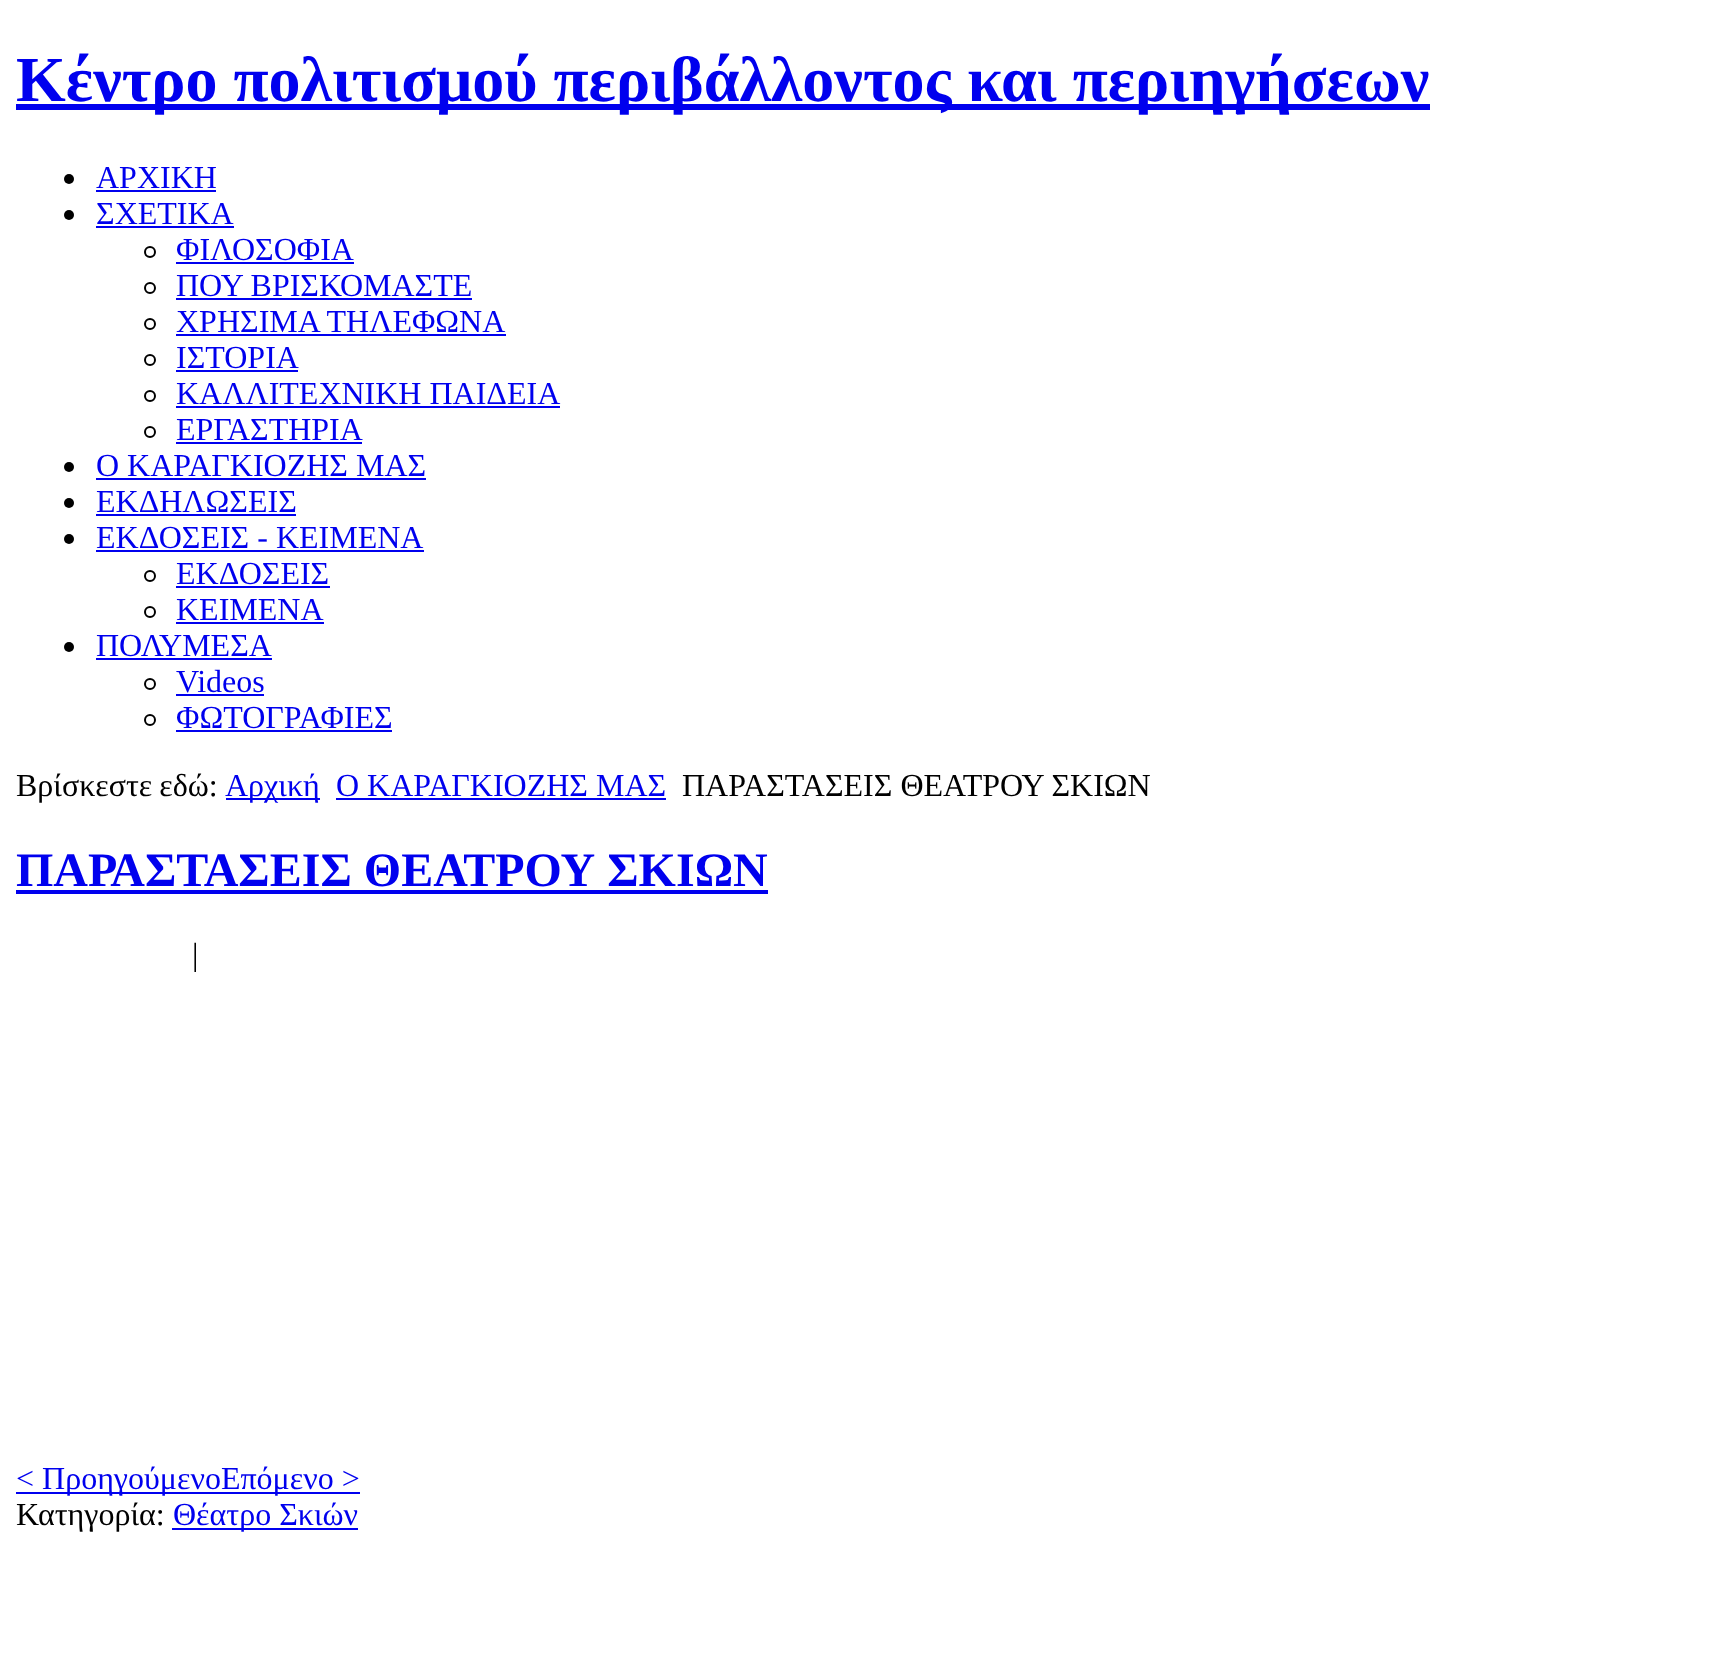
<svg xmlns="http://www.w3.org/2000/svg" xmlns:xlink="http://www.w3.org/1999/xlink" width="1712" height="1653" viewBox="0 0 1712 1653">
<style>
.cls-1{font:bold 64px Liberation Serif;fill:#0000ee}
.cls-2{font:32px Liberation Serif;fill:#0000ee}
.cls-3{font:32px Liberation Serif;fill:#000000}
.cls-4{font:bold 48px Liberation Serif;fill:#0000ee}
</style>
<rect width="100%" height="100%" fill="#ffffff"/>
<rect fill="#0000ee" x="16" y="104" width="1414" height="6"/>
<circle fill="#000000" cx="69" cy="179" r="5"/>
<rect fill="#0000ee" x="96" y="190" width="120" height="2"/>
<circle fill="#000000" cx="69" cy="215" r="5"/>
<rect fill="#0000ee" x="96" y="226" width="138" height="2"/>
<circle fill="none" stroke="#000000" stroke-width="2" cx="150" cy="252" r="5"/>
<rect fill="#0000ee" x="176" y="262" width="178" height="2"/>
<circle fill="none" stroke="#000000" stroke-width="2" cx="150" cy="288" r="5"/>
<rect fill="#0000ee" x="176" y="298" width="296" height="2"/>
<circle fill="none" stroke="#000000" stroke-width="2" cx="150" cy="324" r="5"/>
<rect fill="#0000ee" x="176" y="334" width="330" height="2"/>
<circle fill="none" stroke="#000000" stroke-width="2" cx="150" cy="360" r="5"/>
<rect fill="#0000ee" x="176" y="370" width="122" height="2"/>
<circle fill="none" stroke="#000000" stroke-width="2" cx="150" cy="396" r="5"/>
<rect fill="#0000ee" x="176" y="406" width="384" height="2"/>
<circle fill="none" stroke="#000000" stroke-width="2" cx="150" cy="432" r="5"/>
<rect fill="#0000ee" x="176" y="442" width="186" height="2"/>
<circle fill="#000000" cx="69" cy="467" r="5"/>
<rect fill="#0000ee" x="96" y="478" width="330" height="2"/>
<circle fill="#000000" cx="69" cy="503" r="5"/>
<rect fill="#0000ee" x="96" y="514" width="200" height="2"/>
<circle fill="#000000" cx="69" cy="539" r="5"/>
<rect fill="#0000ee" x="96" y="550" width="328" height="2"/>
<circle fill="none" stroke="#000000" stroke-width="2" cx="150" cy="576" r="5"/>
<rect fill="#0000ee" x="176" y="586" width="154" height="2"/>
<circle fill="none" stroke="#000000" stroke-width="2" cx="150" cy="612" r="5"/>
<rect fill="#0000ee" x="176" y="622" width="148" height="2"/>
<circle fill="#000000" cx="69" cy="647" r="5"/>
<rect fill="#0000ee" x="96" y="658" width="176" height="2"/>
<circle fill="none" stroke="#000000" stroke-width="2" cx="150" cy="684" r="5"/>
<rect fill="#0000ee" x="176" y="694" width="88" height="2"/>
<circle fill="none" stroke="#000000" stroke-width="2" cx="150" cy="720" r="5"/>
<rect fill="#0000ee" x="176" y="730" width="216" height="2"/>
<rect fill="#0000ee" x="226" y="798" width="94" height="2"/>
<rect fill="#0000ee" x="336" y="798" width="330" height="2"/>
<rect fill="#0000ee" x="16" y="890" width="752" height="4"/>
<rect fill="#0000ee" x="16" y="1492" width="344" height="2"/>
<rect fill="#0000ee" x="172" y="1528" width="186" height="2"/>
<text class="cls-1" x="16" y="101">Κέντρο πολιτισμού περιβάλλοντος και περιηγήσεων</text>
<text class="cls-2"><tspan x="96" y="188">ΑΡΧΙΚΗ</tspan><tspan x="96" y="224">ΣΧΕΤΙΚΑ</tspan></text>
<text class="cls-2"><tspan x="176" y="260">ΦΙΛΟΣΟΦΙΑ</tspan><tspan x="176" y="296">ΠΟΥ ΒΡΙΣΚΟΜΑΣΤΕ</tspan><tspan x="176" y="332">ΧΡΗΣΙΜΑ ΤΗΛΕΦΩΝΑ</tspan><tspan x="176" y="368">ΙΣΤΟΡΙΑ</tspan><tspan x="176" y="404">ΚΑΛΛΙΤΕΧΝΙΚΗ ΠΑΙΔΕΙΑ</tspan><tspan x="176" y="440">ΕΡΓΑΣΤΗΡΙΑ</tspan></text>
<text class="cls-2"><tspan x="96" y="476">Ο ΚΑΡΑΓΚΙΟΖΗΣ ΜΑΣ</tspan><tspan x="96" y="512">ΕΚΔΗΛΩΣΕΙΣ</tspan><tspan x="96" y="548">ΕΚΔΟΣΕΙΣ - ΚΕΙΜΕΝΑ</tspan></text>
<text class="cls-2"><tspan x="176" y="584">ΕΚΔΟΣΕΙΣ</tspan><tspan x="176" y="620">KEIMENA</tspan></text>
<text class="cls-2" x="96" y="656">ΠΟΛΥΜΕΣΑ</text>
<text class="cls-2"><tspan x="176" y="692">Videos</tspan><tspan x="176" y="728">ΦΩΤΟΓΡΑΦΙΕΣ</tspan></text>
<text class="cls-3" x="16" y="796" word-spacing="-1">Βρίσκεστε εδώ:</text>
<text class="cls-2" x="225" y="796">Αρχική</text>
<text class="cls-2" x="336" y="796">Ο ΚΑΡΑΓΚΙΟΖΗΣ ΜΑΣ</text>
<text class="cls-3" x="682" y="796">ΠΑΡΑΣΤΑΣΕΙΣ ΘΕΑΤΡΟΥ ΣΚΙΩΝ</text>
<text class="cls-4" x="16" y="886">ΠΑΡΑΣΤΑΣΕΙΣ ΘΕΑΤΡΟΥ ΣΚΙΩΝ</text>
<text class="cls-3" x="192" y="965">|</text>
<text class="cls-2" x="16" y="1489">&lt; ΠροηγούμενοΕπόμενο &gt;</text>
<text class="cls-3" x="16" y="1525">Κατηγορία:</text>
<text class="cls-2" x="173" y="1525">Θέατρο Σκιών</text>
</svg>
